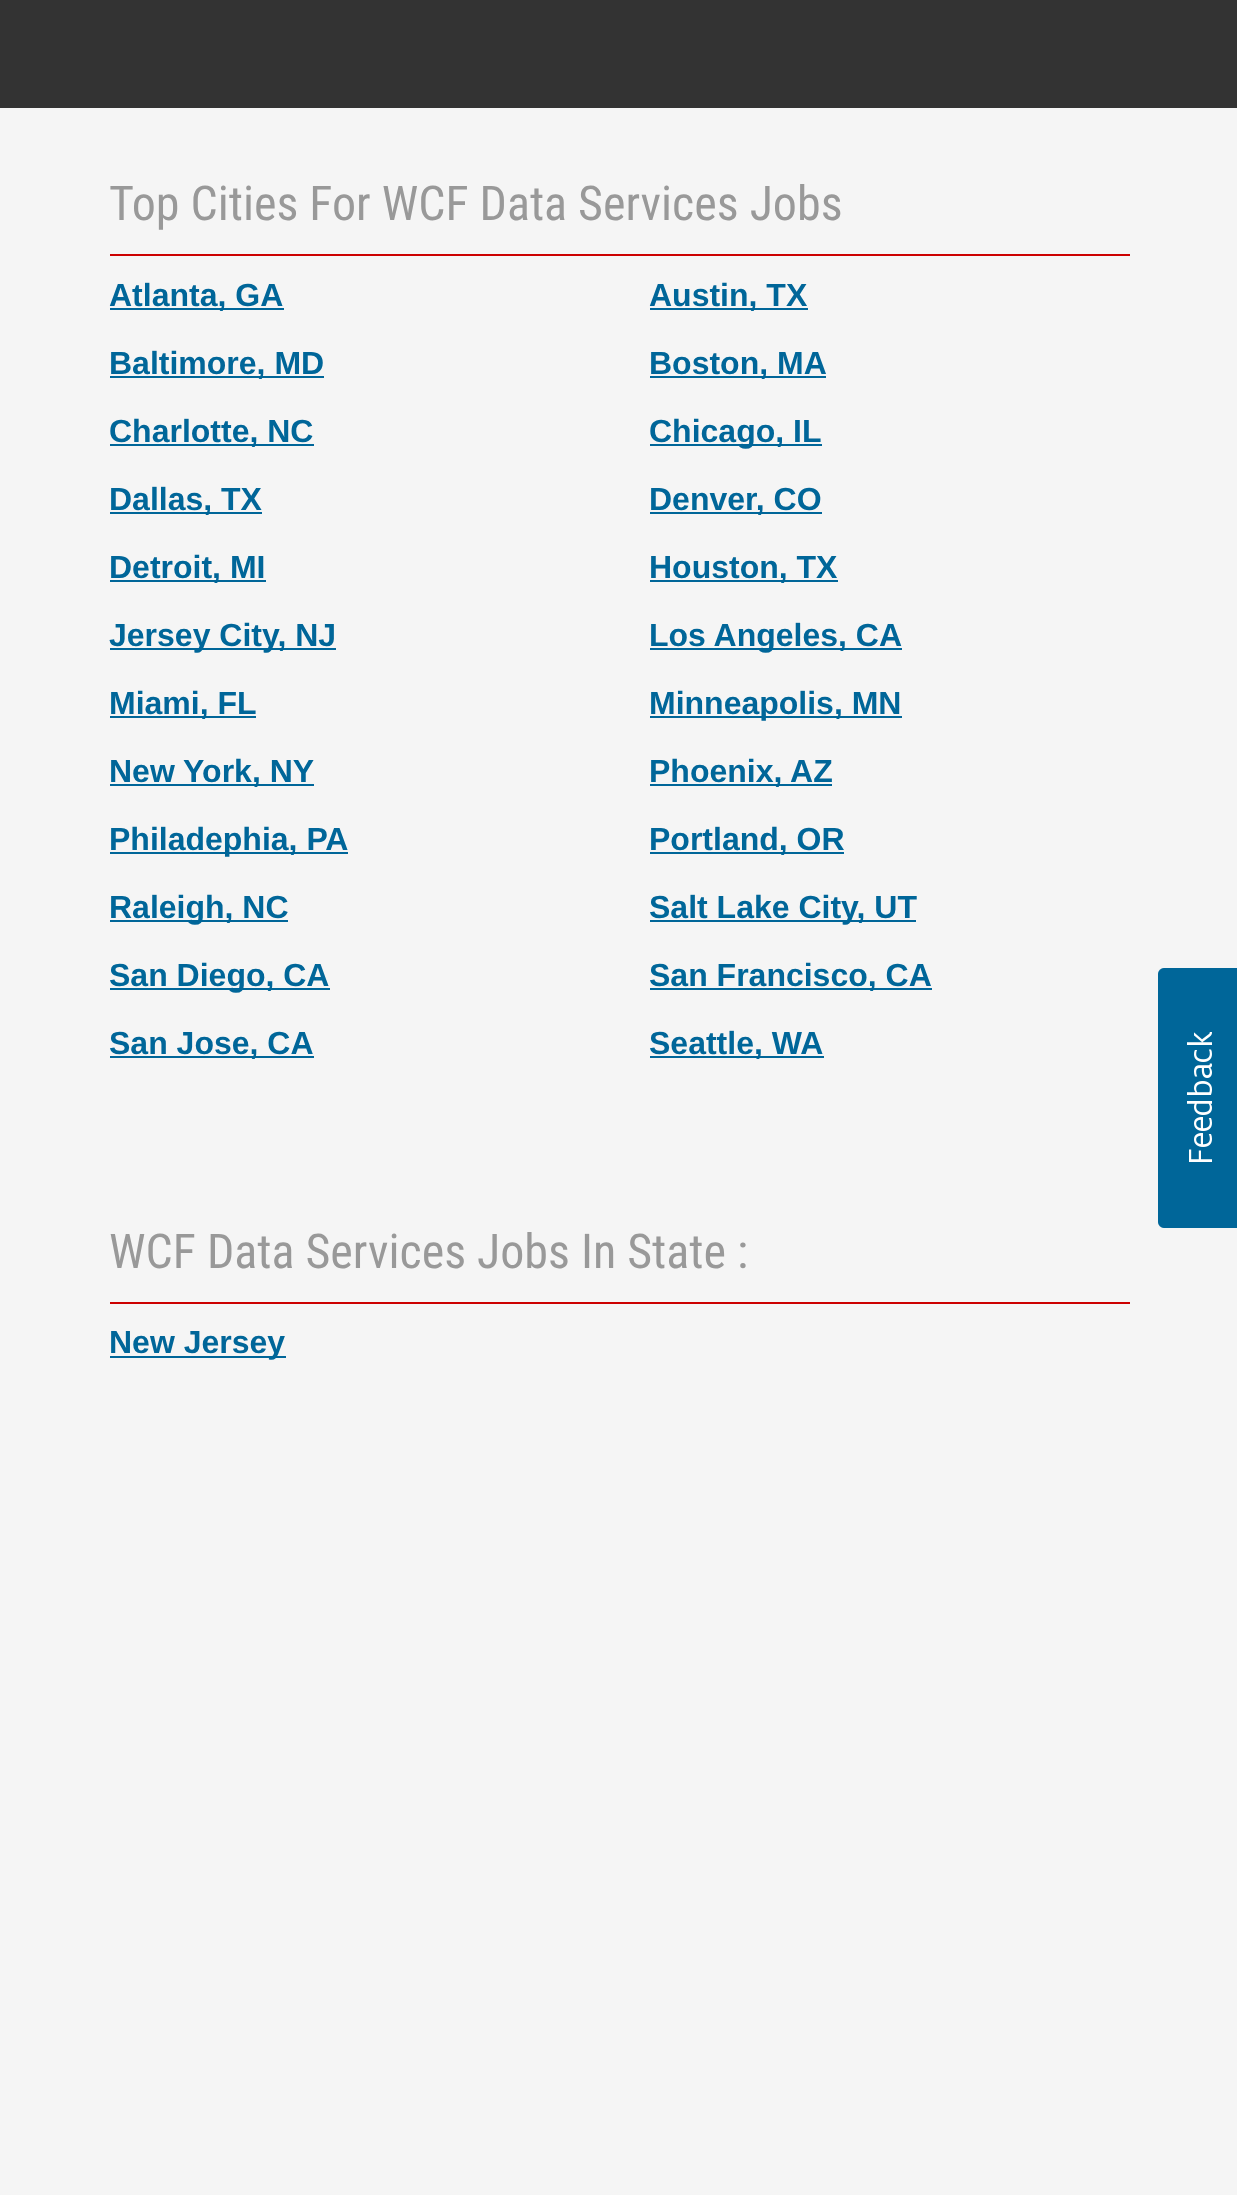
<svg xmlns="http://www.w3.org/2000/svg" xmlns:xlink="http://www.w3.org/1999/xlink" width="1237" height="2195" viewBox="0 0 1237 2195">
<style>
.cls-1{font:48px Roboto Condensed;fill:#999999}
.cls-2{font:bold 32px Liberation Sans;fill:#006699}
</style>
<rect width="100%" height="100%" fill="#f5f5f5"/>
<rect fill="#333333" x="0" y="0" width="1237" height="108"/>
<rect fill="#cc0000" x="110" y="254" width="1020" height="2"/>
<rect fill="#006699" x="110" y="308" width="174" height="2"/>
<rect fill="#006699" x="650" y="308" width="158" height="2"/>
<rect fill="#006699" x="110" y="376" width="214" height="2"/>
<rect fill="#006699" x="650" y="376" width="176" height="2"/>
<rect fill="#006699" x="110" y="444" width="204" height="2"/>
<rect fill="#006699" x="650" y="444" width="172" height="2"/>
<rect fill="#006699" x="110" y="512" width="152" height="2"/>
<rect fill="#006699" x="650" y="512" width="172" height="2"/>
<rect fill="#006699" x="110" y="580" width="156" height="2"/>
<rect fill="#006699" x="650" y="580" width="188" height="2"/>
<rect fill="#006699" x="110" y="648" width="226" height="2"/>
<rect fill="#006699" x="650" y="648" width="252" height="2"/>
<rect fill="#006699" x="110" y="716" width="146" height="2"/>
<rect fill="#006699" x="650" y="716" width="252" height="2"/>
<rect fill="#006699" x="110" y="784" width="204" height="2"/>
<rect fill="#006699" x="650" y="784" width="182" height="2"/>
<rect fill="#006699" x="110" y="852" width="238" height="2"/>
<rect fill="#006699" x="650" y="852" width="194" height="2"/>
<rect fill="#006699" x="110" y="920" width="178" height="2"/>
<rect fill="#006699" x="650" y="920" width="266" height="2"/>
<rect fill="#006699" x="110" y="988" width="220" height="2"/>
<rect fill="#006699" x="650" y="988" width="282" height="2"/>
<rect fill="#006699" x="110" y="1056" width="204" height="2"/>
<rect fill="#006699" x="650" y="1056" width="174" height="2"/>
<rect fill="#cc0000" x="110" y="1302" width="1020" height="2"/>
<rect fill="#006699" x="110" y="1356" width="176" height="2"/>
<image xlink:href="image0.png" x="1158" y="968" width="79" height="260"/>
<text class="cls-1" x="109" y="220">Top Cities For WCF Data Services Jobs</text>
<text class="cls-2" x="109" y="306">Atlanta, GA</text>
<text class="cls-2" x="649" y="306">Austin, TX</text>
<text class="cls-2" x="109" y="374">Baltimore, MD</text>
<text class="cls-2" x="649" y="374">Boston, MA</text>
<text class="cls-2" x="109" y="442">Charlotte, NC</text>
<text class="cls-2" x="649" y="442">Chicago, IL</text>
<text class="cls-2" x="109" y="510">Dallas, TX</text>
<text class="cls-2" x="649" y="510">Denver, CO</text>
<text class="cls-2" x="109" y="578">Detroit, MI</text>
<text class="cls-2" x="649" y="578">Houston, TX</text>
<text class="cls-2" x="109" y="646">Jersey City, NJ</text>
<text class="cls-2" x="649" y="646">Los Angeles, CA</text>
<text class="cls-2" x="109" y="714">Miami, FL</text>
<text class="cls-2" x="649" y="714">Minneapolis, MN</text>
<text class="cls-2" x="109" y="782">New York, NY</text>
<text class="cls-2" x="649" y="782">Phoenix, AZ</text>
<text class="cls-2" x="109" y="850">Philadephia, PA</text>
<text class="cls-2" x="649" y="850">Portland, OR</text>
<text class="cls-2" x="109" y="918">Raleigh, NC</text>
<text class="cls-2" x="649" y="918">Salt Lake City, UT</text>
<text class="cls-2" x="109" y="986">San Diego, CA</text>
<text class="cls-2" x="649" y="986">San Francisco, CA</text>
<text class="cls-2" x="109" y="1054">San Jose, CA</text>
<text class="cls-2" x="649" y="1054">Seattle, WA</text>
<text class="cls-1" x="109" y="1268">WCF Data Services Jobs In State :</text>
<text class="cls-2" x="109" y="1353">New Jersey</text>
</svg>
